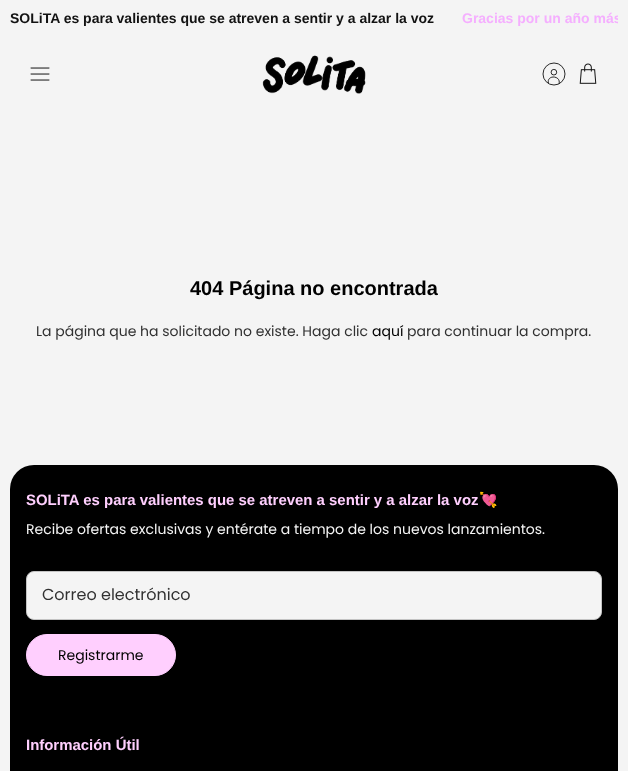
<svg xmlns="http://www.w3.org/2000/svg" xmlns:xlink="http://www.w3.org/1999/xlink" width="628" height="771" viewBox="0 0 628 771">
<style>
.cls-1{font:bold 14px Liberation Sans;fill:#121212}
.cls-2{font:bold 14px Liberation Sans;fill:#f5afff}
.cls-3{font:bold 20px Liberation Sans;fill:#000000}
.cls-4{font:14px Poppins;fill:#313131}
.cls-5{font:14px Poppins;fill:#000000}
.cls-6{font:bold 14.95px Liberation Sans;fill:#ffcffe}
.cls-7{font:bold 14.95px Noto Color Emoji;fill:#ffcffe}
.cls-8{font:14px Poppins;fill:#f4f4f4}
.cls-9{font:16px Poppins;fill:#313131}
</style>
<defs>
<clipPath id="clip1"><rect x="10" y="10" width="608" height="17"/></clipPath>
</defs>
<rect width="100%" height="100%" fill="#f4f4f4"/>
<image xlink:href="image0.png" x="30" y="67" width="20" height="14"/>
<image xlink:href="image1.png" x="262" y="55" width="104" height="39"/>
<path fill="none" stroke="#121212" stroke-width="0.9" d="M559 84C561.5 75 546 74.5 548.5 83.5"/>
<circle fill="none" stroke="#121212" stroke-width="0.9" cx="553.9" cy="72.2" r="2.8"/>
<circle fill="none" stroke="#121212" stroke-width="0.9" cx="554" cy="74" r="11"/>
<image xlink:href="image2.png" x="579" y="63" width="18" height="21"/>
<rect fill="#000000" x="10" y="465" width="608" height="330" rx="24"/>
<rect fill="#f4f4f4" stroke="#c3c3c3" x="26.5" y="571.5" width="575" height="48" rx="7.5"/>
<rect fill="#ffcffe" stroke="#ffcffe" x="26.5" y="634.5" width="149" height="41" rx="20.5"/>
<text class="cls-1" x="10" y="23">SOLiTA es para valientes que se atreven a sentir y a alzar la voz</text>
<g clip-path="url(#clip1)">
<text class="cls-2" x="462" y="23">Gracias por un año más</text>
</g>
<text class="cls-3" x="190" y="295">404 Página no encontrada</text>
<text class="cls-4" x="36" y="336">La página que ha solicitado no existe. Haga clic</text>
<text class="cls-5" x="372" y="336">aquí</text>
<text class="cls-4" x="407" y="336">para continuar la compra.</text>
<text class="cls-6" x="26" y="505">SOLiTA es para valientes que se atreven a sentir y a alzar la voz</text>
<text class="cls-7" x="479" y="505">💘</text>
<text class="cls-8" x="26" y="534">Recibe ofertas exclusivas y entérate a tiempo de los nuevos lanzamientos.</text>
<text class="cls-9" x="42" y="600">Correo electrónico</text>
<text class="cls-5" x="58" y="660">Registrarme</text>
<text class="cls-6" x="26" y="750">Información Útil</text>
</svg>
